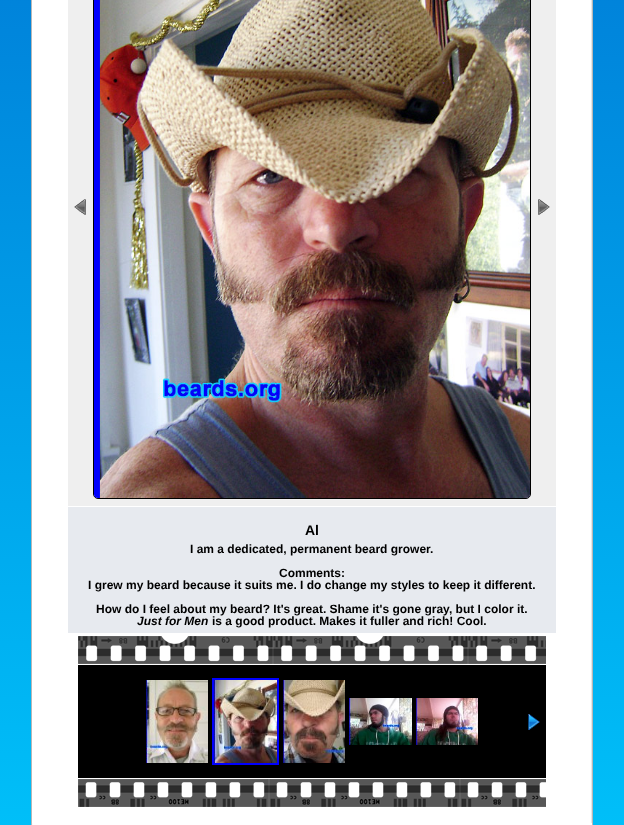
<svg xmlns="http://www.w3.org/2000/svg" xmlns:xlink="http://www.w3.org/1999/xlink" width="624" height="825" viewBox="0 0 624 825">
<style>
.cls-1{font:bold 14px Liberation Sans;fill:#000000}
.cls-2{font:bold 12px Liberation Sans;fill:#000000}
.cls-3{font:italic bold 12px Liberation Sans;fill:#000000}
</style>
<defs>
<linearGradient id="g1" gradientUnits="userSpaceOnUse" x1="312" y1="-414" x2="312" y2="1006"><stop offset="0" stop-color="#0066cc"/><stop offset="1" stop-color="#00ccff"/></linearGradient>
</defs>
<rect width="100%" height="100%" fill="#ffffff"/>
<rect fill="url(#g1)" x="0" y="0" width="624" height="825"/>
<rect fill="#ffffff" x="32" y="0" width="559" height="823"/>
<rect fill="#b7b7b7" x="31" y="0" width="1" height="823"/>
<image xlink:href="image0.png" x="591" y="0" width="2" height="823"/>
<rect fill="#efefef" x="68" y="0" width="488" height="506"/>
<image xlink:href="image1.png" x="74" y="199" width="12" height="16"/>
<rect fill="none" stroke="#000000" x="93.5" y="-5.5" width="437" height="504" rx="4.5"/>
<image xlink:href="image2.png" x="94" y="0" width="436" height="498"/>
<image xlink:href="image3.png" x="538" y="199" width="12" height="16"/>
<rect fill="#e7eaef" x="68" y="507" width="488" height="126"/>
<image xlink:href="image4.png" x="78" y="636" width="468" height="28"/>
<rect fill="#000000" x="78" y="665" width="468" height="113"/>
<image xlink:href="image5.png" x="146" y="680" width="62" height="83"/>
<rect fill="none" stroke="#0000ff" stroke-width="2" x="213" y="679" width="65" height="85"/>
<image xlink:href="image6.png" x="214" y="680" width="63" height="83"/>
<image xlink:href="image7.png" x="283" y="680" width="62" height="83"/>
<image xlink:href="image8.png" x="349" y="698" width="63" height="47"/>
<image xlink:href="image9.png" x="416" y="698" width="62" height="47"/>
<image xlink:href="image10.png" x="528" y="714" width="12" height="16"/>
<image xlink:href="image11.png" x="78" y="779" width="468" height="28"/>
<image xlink:href="image12.png" x="31" y="823" width="561" height="2"/>
<rect fill="#b8b8b8" x="592" y="823" width="1" height="2"/>
<text class="cls-1" x="305" y="535">Al</text>
<text class="cls-2" x="190" y="553">I am a dedicated, permanent beard grower.</text>
<text class="cls-2" x="279" y="577">Comments:</text>
<text class="cls-2" x="88" y="589">I grew my beard because it suits me. I do change my styles to keep it different.</text>
<text class="cls-2" x="96" y="613">How do I feel about my beard? It's great. Shame it's gone gray, but I color it.</text>
<text class="cls-3" x="137" y="625">Just for Men</text>
<text class="cls-2" x="212" y="625">is a good product. Makes it fuller and rich! Cool.</text>
</svg>
